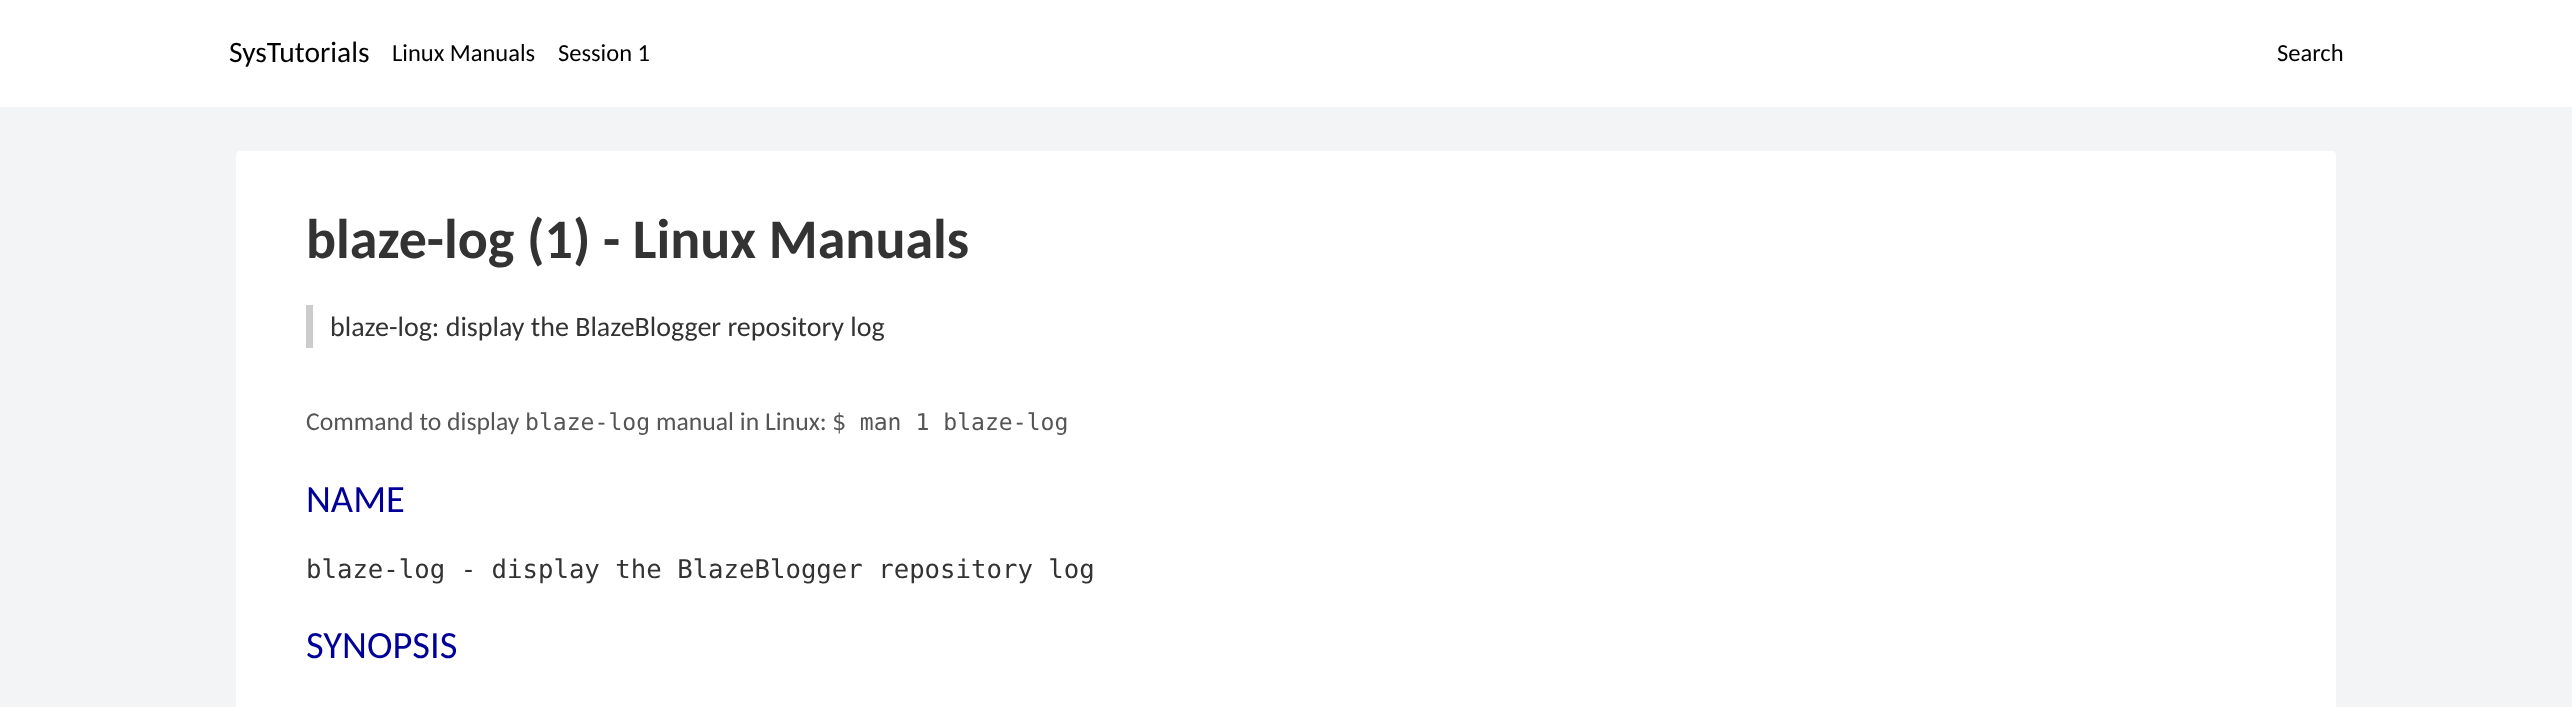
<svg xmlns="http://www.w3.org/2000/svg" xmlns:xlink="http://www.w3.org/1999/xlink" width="2572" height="707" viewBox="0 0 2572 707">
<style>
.cls-1{font:29.5px Carlito;fill:#000000}
.cls-2{font:24.5px Carlito;fill:#000000}
.cls-3{font:bold 56px Carlito;fill:#333333}
.cls-4{font:28px Carlito;fill:#333333}
.cls-5{font:25.7px Carlito;fill:#555555}
.cls-6{font:23.1px DejaVu Sans Mono;fill:#555555}
.cls-7{font:38.5px Carlito;fill:#000099}
.cls-8{font:25.7px DejaVu Sans Mono;fill:#333333}
</style>
<rect width="100%" height="100%" fill="#f3f4f6"/>
<rect fill="#ffffff" x="0" y="0" width="2572" height="107"/>
<path fill="#ffffff" d="M240 151H2332C2334 151 2336 153 2336 155V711H236V155C236 153 238 151 240 151Z"/>
<rect fill="#cccccc" x="306" y="305" width="7" height="43"/>
<text class="cls-1" x="229" y="62">SysTutorials</text>
<text class="cls-2" x="392" y="61">Linux Manuals</text>
<text class="cls-2" x="558" y="61">Session 1</text>
<text class="cls-2" x="2277" y="61">Search</text>
<text class="cls-3" x="306" y="258">blaze-log (1) - Linux Manuals</text>
<text class="cls-4" x="330" y="336">blaze-log: display the BlazeBlogger repository log</text>
<text class="cls-5" x="306" y="430">Command to display</text>
<text class="cls-6" x="525" y="430">blaze-log</text>
<text class="cls-5" x="656" y="430">manual in Linux:</text>
<text class="cls-6" x="832" y="430">$ man 1 blaze-log</text>
<text class="cls-7" x="306" y="512">NAME</text>
<text class="cls-8" x="306" y="578">blaze-log - display the BlazeBlogger repository log</text>
<text class="cls-7" x="306" y="658">SYNOPSIS</text>
</svg>
